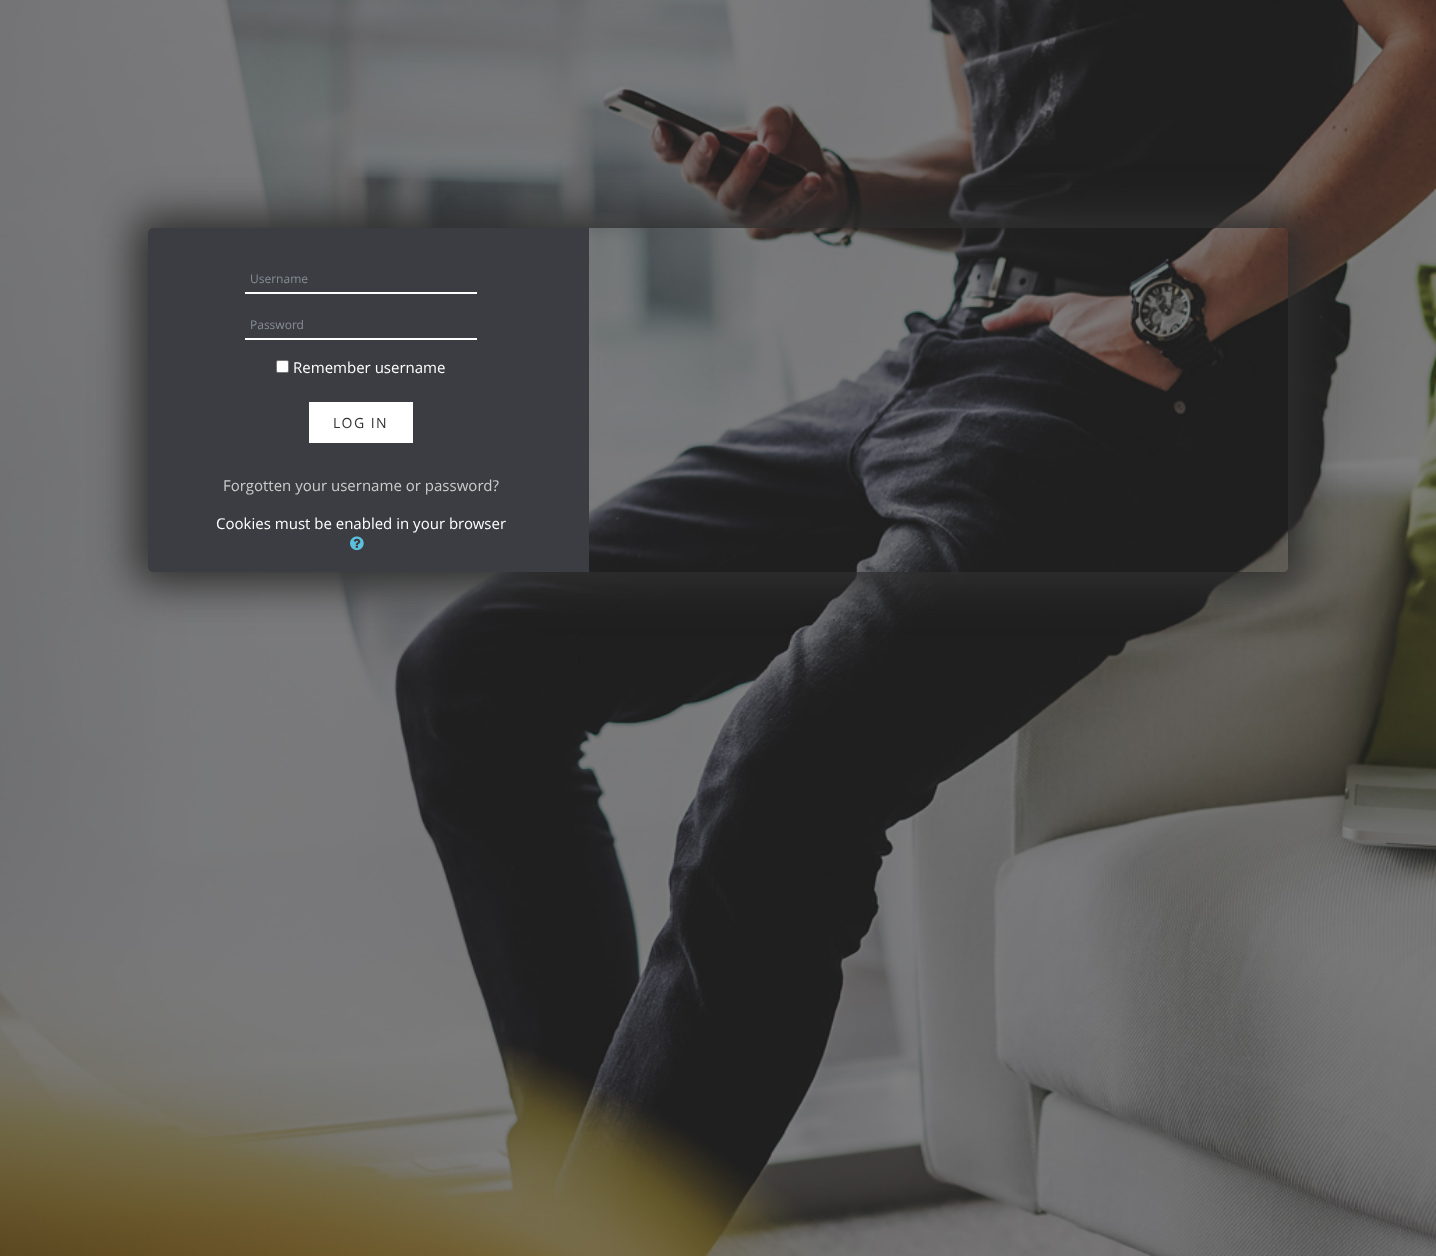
<svg xmlns="http://www.w3.org/2000/svg" xmlns:xlink="http://www.w3.org/1999/xlink" width="1436" height="1256" viewBox="0 0 1436 1256">
<style>
.cls-1{font:12px Open Sans;fill:#868e96}
.cls-2{font:15px Open Sans;fill:#ffffff}
.cls-3{font:14px Open Sans;letter-spacing:1.5px;fill:#333333}
.cls-4{font:15px Open Sans;fill:#cccccc}
</style>
<defs>
<clipPath id="clip1"><path d="M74 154H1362V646H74ZM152 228H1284C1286 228 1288 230 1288 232V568C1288 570 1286 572 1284 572H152C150 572 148 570 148 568V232C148 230 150 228 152 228Z" clip-rule="evenodd"/></clipPath>
</defs>
<rect width="100%" height="100%" fill="#ffffff"/>
<image xlink:href="image0.png" x="0" y="0" width="1436" height="1256"/>
<g clip-path="url(#clip1)">
<rect fill="#2f2f2f" filter="blur(20px)" x="135" y="215" width="1166" height="370" rx="17"/>
</g>
<path fill="#3c3d42" d="M152 228H589V572H152C150 572 148 570 148 568V232C148 230 150 228 152 228Z"/>
<rect fill="#ffffff" x="245" y="292" width="232" height="2"/>
<rect fill="#ffffff" x="245" y="338" width="232" height="2"/>
<rect fill="#ffffff" stroke="#767676" x="276.5" y="360.5" width="12" height="12" rx="1.5"/>
<rect fill="#ffffff" x="309" y="402" width="104" height="41"/>
<image xlink:href="image1.png" x="350" y="536" width="14" height="15"/>
<text class="cls-1" x="250" y="283">Username</text>
<text class="cls-1" x="250" y="329">Password</text>
<text class="cls-2" x="293" y="373">Remember username</text>
<text class="cls-3" x="333" y="428">LOG IN</text>
<text class="cls-4" x="223" y="491">Forgotten your username or password?</text>
<text class="cls-2" x="216" y="529">Cookies must be enabled in your browser</text>
</svg>
